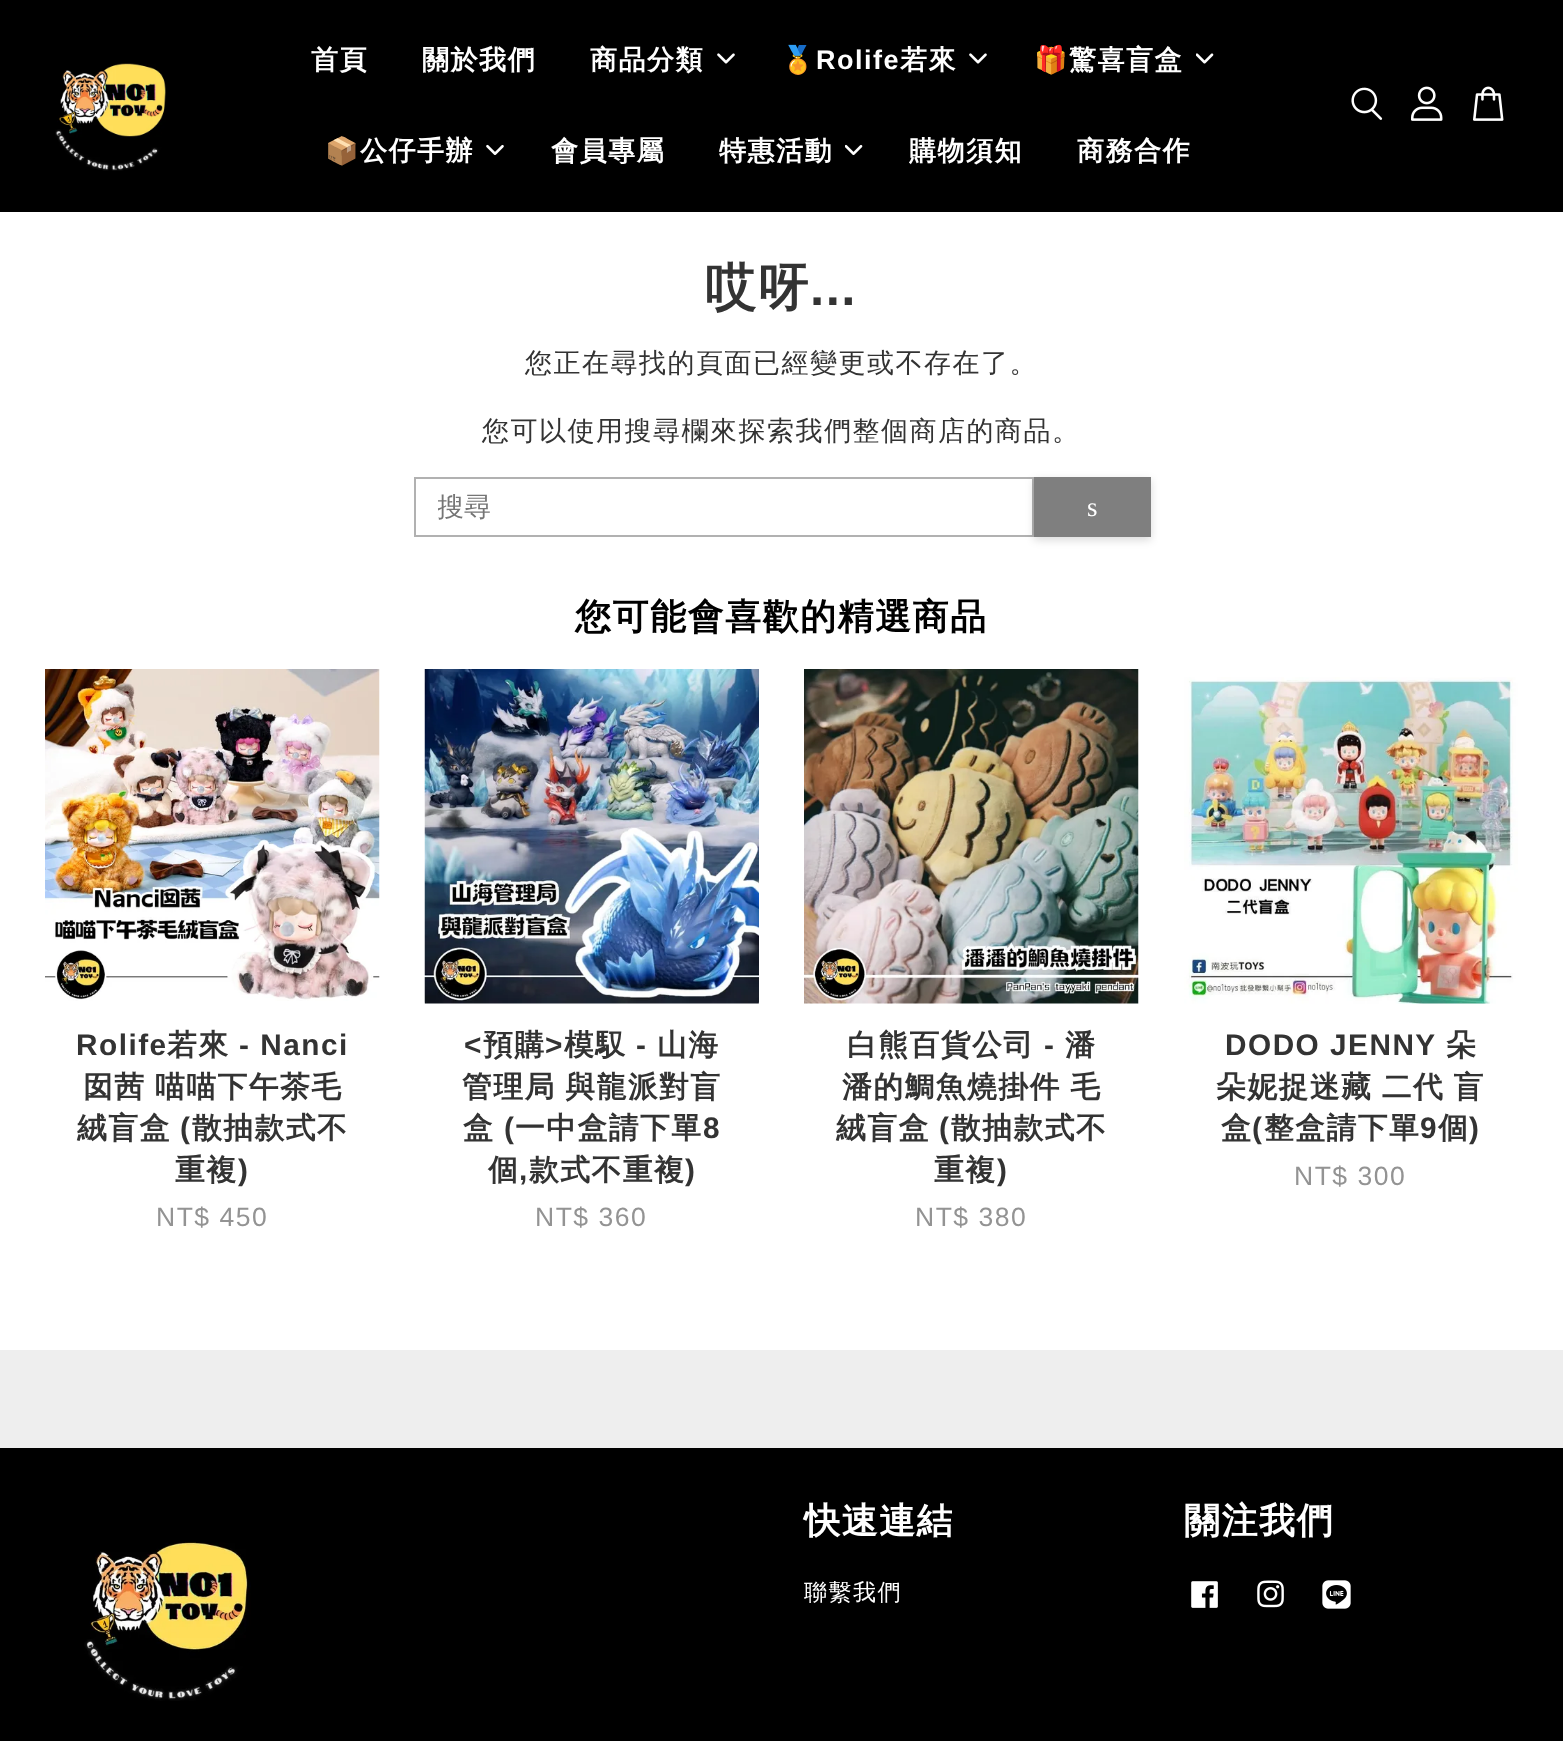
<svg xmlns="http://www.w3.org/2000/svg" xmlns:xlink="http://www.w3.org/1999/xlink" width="1563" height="1741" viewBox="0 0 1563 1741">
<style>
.cls-1{font:bold 27px WenQuanYi Zen Hei;letter-spacing:1.5px;fill:#ffffff}
.cls-2{font:bold 27px Noto Color Emoji;letter-spacing:1.5px;fill:#ffffff}
.cls-3{font:bold 27px Liberation Sans;letter-spacing:1.5px;fill:#ffffff}
.cls-4{font:bold 51px WenQuanYi Zen Hei;letter-spacing:1.5px;fill:#333333}
.cls-5{font:bold 51px Liberation Sans;letter-spacing:1.5px;fill:#333333}
.cls-6{font:500 27px WenQuanYi Zen Hei;letter-spacing:1.5px;fill:#333333}
.cls-7{font:500 27px WenQuanYi Zen Hei;fill:#757575}
.cls-8{font:27px Liberation Serif;fill:#ffffff}
.cls-9{font:bold 36px WenQuanYi Zen Hei;letter-spacing:1.5px;fill:#000000}
.cls-10{font:bold 29.75px Liberation Sans;letter-spacing:1.5px;fill:#333333}
.cls-11{font:bold 29.75px WenQuanYi Zen Hei;letter-spacing:1.5px;fill:#333333}
.cls-12{font:26.5px Liberation Sans;letter-spacing:1.5px;fill:#939393}
.cls-13{font:bold 36px WenQuanYi Zen Hei;letter-spacing:1.5px;fill:#ffffff}
.cls-14{font:500 23px WenQuanYi Zen Hei;letter-spacing:1.5px;fill:#ffffff}
</style>
<defs>
<clipPath id="clip1"><path d="M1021 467H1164V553H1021ZM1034 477H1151V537H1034Z" clip-rule="evenodd"/></clipPath>
<clipPath id="clip2"><rect x="438" y="489" width="566" height="36"/></clipPath>
</defs>
<rect width="100%" height="100%" fill="#ffffff"/>
<rect fill="#000000" x="0" y="0" width="1563" height="212"/>
<image xlink:href="image0.png" x="55" y="63" width="111" height="108"/>
<image xlink:href="image1.png" x="717" y="53" width="18" height="11"/>
<image xlink:href="image1.png" x="969" y="53" width="18" height="11"/>
<image xlink:href="image2.png" x="1196" y="53" width="18" height="11"/>
<image xlink:href="image3.png" x="486" y="144" width="18" height="11"/>
<image xlink:href="image4.png" x="845" y="144" width="18" height="12"/>
<image xlink:href="image5.png" x="1351" y="87" width="32" height="33"/>
<image xlink:href="image6.png" x="1411" y="86" width="32" height="35"/>
<image xlink:href="image7.png" x="1473" y="86" width="31" height="35"/>
<rect fill="none" stroke="#b1b1b1" stroke-width="2" x="415" y="478" width="618" height="58"/>
<g clip-path="url(#clip1)">
<rect fill="#000000" fill-opacity="0.15" filter="blur(4px)" x="1034" y="480" width="117" height="60"/>
</g>
<rect fill="#000000" fill-opacity="0.5" x="1034" y="477" width="117" height="60"/>
<image xlink:href="image8.png" x="45" y="669" width="335" height="332"/>
<image xlink:href="image9.png" x="424" y="669" width="335" height="335"/>
<image xlink:href="image10.png" x="804" y="669" width="335" height="335"/>
<image xlink:href="image11.png" x="1184" y="677" width="334" height="327"/>
<rect fill="#000000" x="0" y="1448" width="1563" height="293"/>
<rect fill="#eeeeee" x="0" y="1350" width="1563" height="98"/>
<image xlink:href="image12.png" x="84" y="1542" width="167" height="159"/>
<image xlink:href="image13.png" x="1191" y="1581" width="27" height="27"/>
<image xlink:href="image14.png" x="1257" y="1580" width="27" height="28"/>
<image xlink:href="image15.png" x="1322" y="1580" width="29" height="29"/>
<text class="cls-1" x="311" y="69">首頁</text>
<text class="cls-1" x="422" y="69">關於我們</text>
<text class="cls-1" x="590" y="69">商品分類</text>
<text class="cls-2" x="781" y="69">🏅</text>
<text class="cls-3" x="816" y="69">Rolife</text>
<text class="cls-1" x="900" y="69">若來</text>
<text class="cls-2" x="1034" y="69">🎁</text>
<text class="cls-1" x="1069" y="69">驚喜盲盒</text>
<text class="cls-2" x="325" y="160">📦</text>
<text class="cls-1" x="360" y="160">公仔手辦</text>
<text class="cls-1" x="551" y="160">會員專屬</text>
<text class="cls-1" x="719" y="160">特惠活動</text>
<text class="cls-1" x="909" y="160">購物須知</text>
<text class="cls-1" x="1077" y="160">商務合作</text>
<text class="cls-4" x="705" y="305">哎呀</text>
<text class="cls-5" x="810" y="305">...</text>
<text class="cls-6" x="525" y="372">您正在尋找的頁面已經變更或不存在了。</text>
<text class="cls-6" x="482" y="440">您可以使用搜尋欄來探索我們整個商店的商品。</text>
<g clip-path="url(#clip2)">
<text class="cls-7" x="437" y="516">搜尋</text>
</g>
<text class="cls-8" x="1087" y="516">s</text>
<text class="cls-9" x="575" y="629">您可能會喜歡的精選商品</text>
<text class="cls-10" x="76" y="1055">Rolife</text>
<text class="cls-11" x="167" y="1055">若來</text>
<text class="cls-10" x="239" y="1055">- Nanci</text>
<text class="cls-11" x="83" y="1097" word-spacing="-1">囡茜 喵喵下午茶毛</text>
<text class="cls-11" x="77" y="1138">絨盲盒</text>
<text class="cls-10" x="180" y="1138">(</text>
<text class="cls-11" x="192" y="1138">散抽款式不</text>
<text class="cls-11" x="175" y="1180">重複</text>
<text class="cls-10" x="238" y="1180">)</text>
<text class="cls-12" x="156" y="1226">NT$ 450</text>
<text class="cls-10" x="464" y="1055">&lt;</text>
<text class="cls-11" x="483" y="1055">預購</text>
<text class="cls-10" x="545" y="1055">&gt;</text>
<text class="cls-11" x="564" y="1055">模馭</text>
<text class="cls-10" x="636" y="1055">-</text>
<text class="cls-11" x="657" y="1055">山海</text>
<text class="cls-11" x="462" y="1097" word-spacing="-1">管理局 與龍派對盲</text>
<text class="cls-11" x="463" y="1138">盒</text>
<text class="cls-10" x="504" y="1138">(</text>
<text class="cls-11" x="515" y="1138">一中盒請下單</text>
<text class="cls-10" x="703" y="1138">8</text>
<text class="cls-11" x="488" y="1180">個</text>
<text class="cls-10" x="519" y="1180">,</text>
<text class="cls-11" x="529" y="1180">款式不重複</text>
<text class="cls-10" x="685" y="1180">)</text>
<text class="cls-12" x="535" y="1226">NT$ 360</text>
<text class="cls-11" x="847" y="1055">白熊百貨公司</text>
<text class="cls-10" x="1044" y="1055">-</text>
<text class="cls-11" x="1065" y="1055">潘</text>
<text class="cls-11" x="842" y="1097" word-spacing="-1">潘的鯛魚燒掛件 毛</text>
<text class="cls-11" x="836" y="1138">絨盲盒</text>
<text class="cls-10" x="939" y="1138">(</text>
<text class="cls-11" x="951" y="1138">散抽款式不</text>
<text class="cls-11" x="934" y="1180">重複</text>
<text class="cls-10" x="997" y="1180">)</text>
<text class="cls-12" x="915" y="1226">NT$ 380</text>
<text class="cls-10" x="1225" y="1055">DODO JENNY</text>
<text class="cls-11" x="1446" y="1055">朵</text>
<text class="cls-11" x="1216" y="1097" word-spacing="-1">朵妮捉迷藏 二代 盲</text>
<text class="cls-11" x="1221" y="1138">盒</text>
<text class="cls-10" x="1252" y="1138">(</text>
<text class="cls-11" x="1264" y="1138">整盒請下單</text>
<text class="cls-10" x="1420" y="1138">9</text>
<text class="cls-11" x="1438" y="1138">個</text>
<text class="cls-10" x="1469" y="1138">)</text>
<text class="cls-12" x="1294" y="1185">NT$ 300</text>
<text class="cls-13" x="804" y="1533">快速連結</text>
<text class="cls-14" x="804" y="1600">聯繫我們</text>
<text class="cls-13" x="1184" y="1533">關注我們</text>
</svg>
